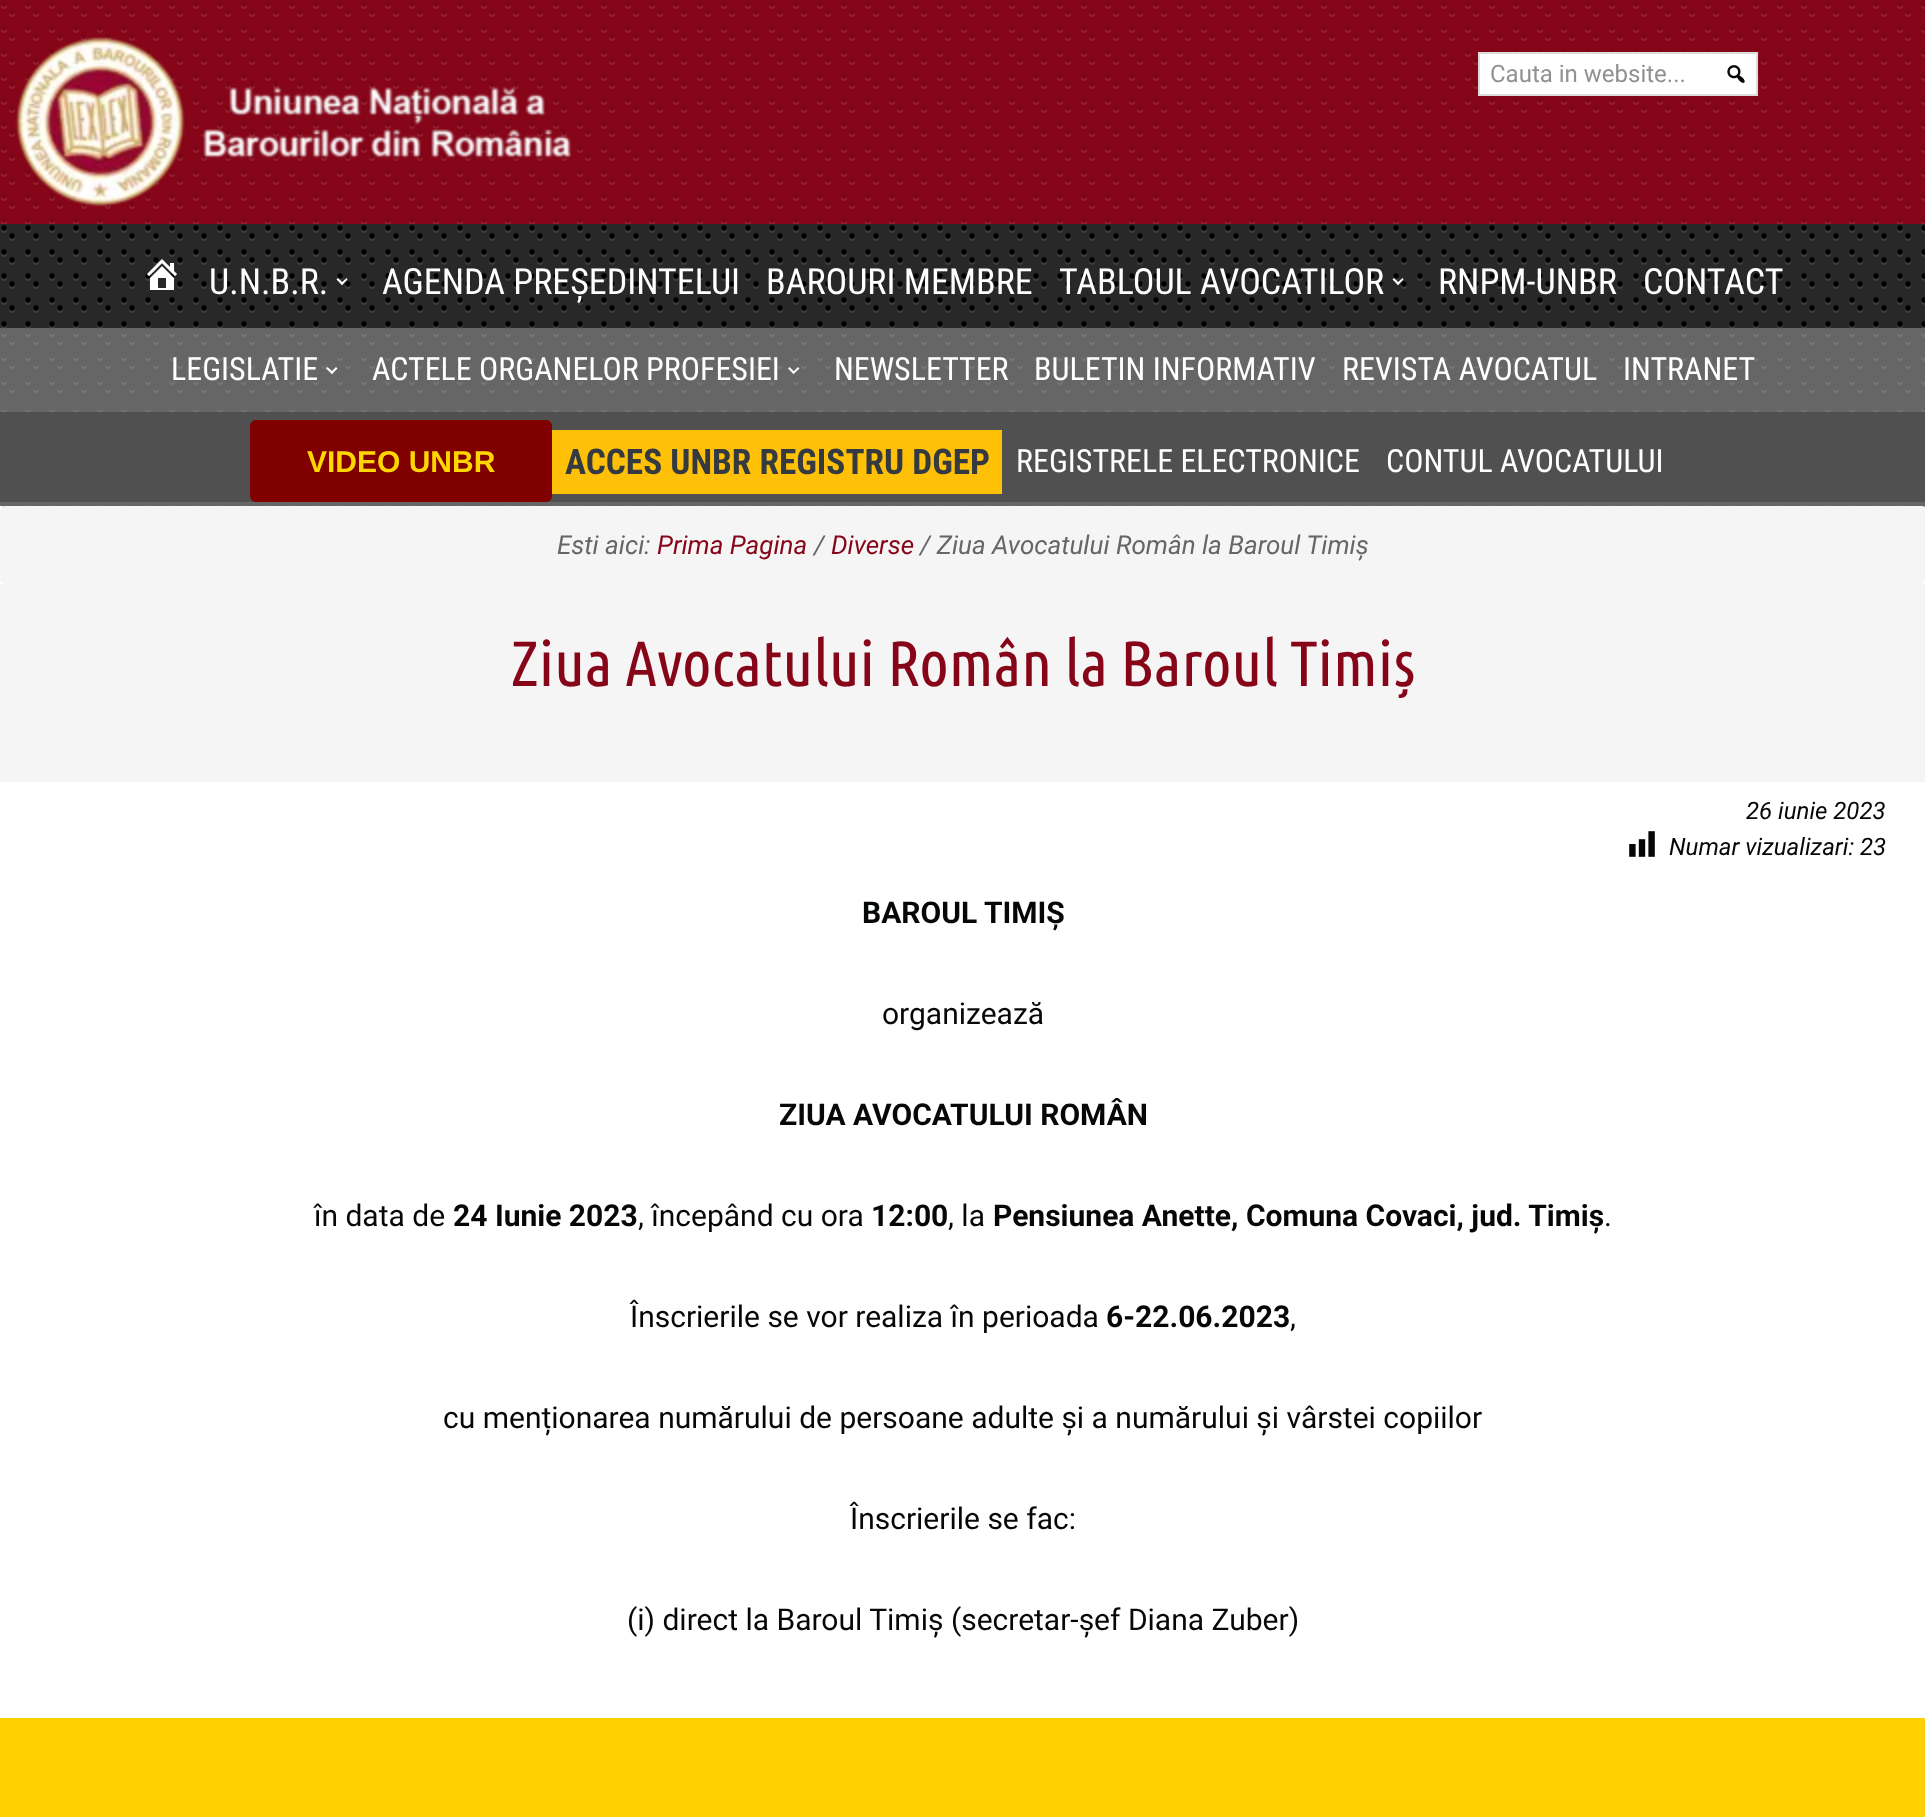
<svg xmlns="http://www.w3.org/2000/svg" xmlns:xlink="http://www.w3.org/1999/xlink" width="1925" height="1817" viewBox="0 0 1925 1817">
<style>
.cls-1{font:24px Roboto;fill:#919191}
.cls-2{font:36px Roboto Condensed;fill:#ffffff}
.cls-3{font:32px Roboto Condensed;fill:#ffffff}
.cls-4{font:bold 30px Liberation Sans;fill:#ffd700}
.cls-5{font:bold 35.25px Roboto Condensed;fill:#343a40}
.cls-6{font:italic 26px Roboto;fill:#666666}
.cls-7{font:italic 26px Roboto;fill:#860518}
.cls-8{font:64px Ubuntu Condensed;fill:#860518}
.cls-9{font:italic 24px Roboto;fill:#050708}
.cls-10{font:bold 30px Roboto;fill:#050708}
.cls-11{font:30px Roboto;fill:#050708}
</style>
<rect width="100%" height="100%" fill="#ffffff"/>
<rect fill="#860518" x="0" y="0" width="1925" height="224"/>
<path fill="none" stroke="#921e2f" stroke-width="5.9" stroke-linecap="round" stroke-dasharray="0 24" d="M4 6H1924.4"/>
<path fill="none" stroke="#921e2f" stroke-width="5.9" stroke-linecap="round" stroke-dasharray="0 24" d="M4 30H1924.4"/>
<path fill="none" stroke="#921e2f" stroke-width="5.9" stroke-linecap="round" stroke-dasharray="0 24" d="M4 54H1924.4"/>
<path fill="none" stroke="#921e2f" stroke-width="5.9" stroke-linecap="round" stroke-dasharray="0 24" d="M4 78H1924.4"/>
<path fill="none" stroke="#921e2f" stroke-width="5.9" stroke-linecap="round" stroke-dasharray="0 24" d="M4 102H1924.4"/>
<path fill="none" stroke="#921e2f" stroke-width="5.9" stroke-linecap="round" stroke-dasharray="0 24" d="M4 126H1924.4"/>
<path fill="none" stroke="#921e2f" stroke-width="5.9" stroke-linecap="round" stroke-dasharray="0 24" d="M4 150H1924.4"/>
<path fill="none" stroke="#921e2f" stroke-width="5.9" stroke-linecap="round" stroke-dasharray="0 24" d="M4 174H1924.4"/>
<path fill="none" stroke="#921e2f" stroke-width="5.9" stroke-linecap="round" stroke-dasharray="0 24" d="M4 198H1924.4"/>
<path fill="none" stroke="#ffffff" stroke-opacity="0.1" stroke-width="5.9" stroke-linecap="round" stroke-dasharray="0 24" d="M4 222H1924.4"/>
<path fill="none" stroke="#921e2f" stroke-width="5.9" stroke-linecap="round" stroke-dasharray="0 24" d="M12 14H1908.4"/>
<path fill="none" stroke="#921e2f" stroke-width="5.9" stroke-linecap="round" stroke-dasharray="0 24" d="M12 38H1908.4"/>
<path fill="none" stroke="#921e2f" stroke-width="5.9" stroke-linecap="round" stroke-dasharray="0 24" d="M12 62H1908.4"/>
<path fill="none" stroke="#921e2f" stroke-width="5.9" stroke-linecap="round" stroke-dasharray="0 24" d="M12 86H1908.4"/>
<path fill="none" stroke="#921e2f" stroke-width="5.9" stroke-linecap="round" stroke-dasharray="0 24" d="M12 110H1908.4"/>
<path fill="none" stroke="#921e2f" stroke-width="5.9" stroke-linecap="round" stroke-dasharray="0 24" d="M12 134H1908.4"/>
<path fill="none" stroke="#921e2f" stroke-width="5.9" stroke-linecap="round" stroke-dasharray="0 24" d="M12 158H1908.4"/>
<path fill="none" stroke="#921e2f" stroke-width="5.9" stroke-linecap="round" stroke-dasharray="0 24" d="M12 182H1908.4"/>
<path fill="none" stroke="#921e2f" stroke-width="5.9" stroke-linecap="round" stroke-dasharray="0 24" d="M12 206H1908.4"/>
<path fill="none" stroke="#7a0516" stroke-width="5.3" stroke-linecap="round" stroke-dasharray="0 24" d="M4 4H1924.4"/>
<path fill="none" stroke="#7a0516" stroke-width="5.3" stroke-linecap="round" stroke-dasharray="0 24" d="M4 28H1924.4"/>
<path fill="none" stroke="#7a0516" stroke-width="5.3" stroke-linecap="round" stroke-dasharray="0 24" d="M4 52H1924.4"/>
<path fill="none" stroke="#7a0516" stroke-width="5.3" stroke-linecap="round" stroke-dasharray="0 24" d="M4 76H1924.4"/>
<path fill="none" stroke="#7a0516" stroke-width="5.3" stroke-linecap="round" stroke-dasharray="0 24" d="M4 100H1924.4"/>
<path fill="none" stroke="#7a0516" stroke-width="5.3" stroke-linecap="round" stroke-dasharray="0 24" d="M4 124H1924.4"/>
<path fill="none" stroke="#7a0516" stroke-width="5.3" stroke-linecap="round" stroke-dasharray="0 24" d="M4 148H1924.4"/>
<path fill="none" stroke="#7a0516" stroke-width="5.3" stroke-linecap="round" stroke-dasharray="0 24" d="M4 172H1924.4"/>
<path fill="none" stroke="#7a0516" stroke-width="5.3" stroke-linecap="round" stroke-dasharray="0 24" d="M4 196H1924.4"/>
<path fill="none" stroke="#7a0516" stroke-width="5.3" stroke-linecap="round" stroke-dasharray="0 24" d="M4 220H1924.4"/>
<path fill="none" stroke="#7a0516" stroke-width="5.3" stroke-linecap="round" stroke-dasharray="0 24" d="M12 12H1908.4"/>
<path fill="none" stroke="#7a0516" stroke-width="5.3" stroke-linecap="round" stroke-dasharray="0 24" d="M12 36H1908.4"/>
<path fill="none" stroke="#7a0516" stroke-width="5.3" stroke-linecap="round" stroke-dasharray="0 24" d="M12 60H1908.4"/>
<path fill="none" stroke="#7a0516" stroke-width="5.3" stroke-linecap="round" stroke-dasharray="0 24" d="M12 84H1908.4"/>
<path fill="none" stroke="#7a0516" stroke-width="5.3" stroke-linecap="round" stroke-dasharray="0 24" d="M12 108H1908.4"/>
<path fill="none" stroke="#7a0516" stroke-width="5.3" stroke-linecap="round" stroke-dasharray="0 24" d="M12 132H1908.4"/>
<path fill="none" stroke="#7a0516" stroke-width="5.3" stroke-linecap="round" stroke-dasharray="0 24" d="M12 156H1908.4"/>
<path fill="none" stroke="#7a0516" stroke-width="5.3" stroke-linecap="round" stroke-dasharray="0 24" d="M12 180H1908.4"/>
<path fill="none" stroke="#7a0516" stroke-width="5.3" stroke-linecap="round" stroke-dasharray="0 24" d="M12 204H1908.4"/>
<image xlink:href="image0.png" x="15" y="37" width="557" height="170"/>
<rect fill="#ffffff" stroke="#dddddd" stroke-width="2" x="1479" y="53" width="278" height="42"/>
<image xlink:href="image1.png" x="1727" y="65" width="18" height="18"/>
<rect fill="#282828" x="0" y="224" width="1925" height="104"/>
<path fill="none" stroke="#3e3e3e" stroke-width="5.9" stroke-linecap="round" stroke-dasharray="0 24" d="M4 230H1924.4"/>
<path fill="none" stroke="#3e3e3e" stroke-width="5.9" stroke-linecap="round" stroke-dasharray="0 24" d="M4 254H1924.4"/>
<path fill="none" stroke="#3e3e3e" stroke-width="5.9" stroke-linecap="round" stroke-dasharray="0 24" d="M4 278H1924.4"/>
<path fill="none" stroke="#3e3e3e" stroke-width="5.9" stroke-linecap="round" stroke-dasharray="0 24" d="M4 302H1924.4"/>
<path fill="none" stroke="#ffffff" stroke-opacity="0.1" stroke-width="5.9" stroke-linecap="round" stroke-dasharray="0 24" d="M4 326H1924.4"/>
<path fill="none" stroke="#3e3e3e" stroke-width="5.9" stroke-linecap="round" stroke-dasharray="0 24" d="M12 238H1908.4"/>
<path fill="none" stroke="#3e3e3e" stroke-width="5.9" stroke-linecap="round" stroke-dasharray="0 24" d="M12 262H1908.4"/>
<path fill="none" stroke="#3e3e3e" stroke-width="5.9" stroke-linecap="round" stroke-dasharray="0 24" d="M12 286H1908.4"/>
<path fill="none" stroke="#3e3e3e" stroke-width="5.9" stroke-linecap="round" stroke-dasharray="0 24" d="M12 310H1908.4"/>
<path fill="none" stroke="#000000" stroke-width="5.3" stroke-linecap="round" stroke-dasharray="0 24" d="M4 228H1924.4"/>
<path fill="none" stroke="#000000" stroke-width="5.3" stroke-linecap="round" stroke-dasharray="0 24" d="M4 252H1924.4"/>
<path fill="none" stroke="#000000" stroke-width="5.3" stroke-linecap="round" stroke-dasharray="0 24" d="M4 276H1924.4"/>
<path fill="none" stroke="#000000" stroke-width="5.3" stroke-linecap="round" stroke-dasharray="0 24" d="M4 300H1924.4"/>
<path fill="none" stroke="#000000" stroke-width="5.3" stroke-linecap="round" stroke-dasharray="0 24" d="M4 324H1924.4"/>
<path fill="none" stroke="#000000" stroke-width="5.3" stroke-linecap="round" stroke-dasharray="0 24" d="M12 236H1908.4"/>
<path fill="none" stroke="#000000" stroke-width="5.3" stroke-linecap="round" stroke-dasharray="0 24" d="M12 260H1908.4"/>
<path fill="none" stroke="#000000" stroke-width="5.3" stroke-linecap="round" stroke-dasharray="0 24" d="M12 284H1908.4"/>
<path fill="none" stroke="#000000" stroke-width="5.3" stroke-linecap="round" stroke-dasharray="0 24" d="M12 308H1908.4"/>
<image xlink:href="image2.png" x="147" y="259" width="30" height="31"/>
<path fill="#ffffff" d="M346.5 278L347.5 279.5L342 285L340.5 283.5Z"/>
<path fill="#ffffff" d="M338 278L343.5 283.5L342 285L336.5 279.5Z"/>
<path fill="#ffffff" d="M1402.5 278L1403.5 279.5L1398 285L1396.5 283.5Z"/>
<path fill="#ffffff" d="M1394 278L1399.5 283.5L1398 285L1392.5 279.5Z"/>
<rect fill="#666666" x="0" y="328" width="1925" height="76"/>
<path fill="none" stroke="#757575" stroke-width="5.9" stroke-linecap="round" stroke-dasharray="0 24" d="M4 334H1924.4"/>
<path fill="none" stroke="#757575" stroke-width="5.9" stroke-linecap="round" stroke-dasharray="0 24" d="M4 358H1924.4"/>
<path fill="none" stroke="#757575" stroke-width="5.9" stroke-linecap="round" stroke-dasharray="0 24" d="M4 382H1924.4"/>
<path fill="none" stroke="#757575" stroke-width="5.9" stroke-linecap="round" stroke-dasharray="0 24" d="M12 342H1908.4"/>
<path fill="none" stroke="#757575" stroke-width="5.9" stroke-linecap="round" stroke-dasharray="0 24" d="M12 366H1908.4"/>
<path fill="none" stroke="#757575" stroke-width="5.9" stroke-linecap="round" stroke-dasharray="0 24" d="M12 390H1908.4"/>
<path fill="none" stroke="#666666" stroke-width="5.3" stroke-linecap="round" stroke-dasharray="0 24" d="M4 332H1924.4"/>
<path fill="none" stroke="#666666" stroke-width="5.3" stroke-linecap="round" stroke-dasharray="0 24" d="M4 356H1924.4"/>
<path fill="none" stroke="#666666" stroke-width="5.3" stroke-linecap="round" stroke-dasharray="0 24" d="M4 380H1924.4"/>
<path fill="none" stroke="#666666" stroke-width="5.3" stroke-linecap="round" stroke-dasharray="0 24" d="M4 404H1924.4"/>
<path fill="none" stroke="#666666" stroke-width="5.3" stroke-linecap="round" stroke-dasharray="0 24" d="M12 340H1908.4"/>
<path fill="none" stroke="#666666" stroke-width="5.3" stroke-linecap="round" stroke-dasharray="0 24" d="M12 364H1908.4"/>
<path fill="none" stroke="#666666" stroke-width="5.3" stroke-linecap="round" stroke-dasharray="0 24" d="M12 388H1908.4"/>
<path fill="#ffffff" d="M336 367L337.5 368.5L332 374L330.5 372.5Z"/>
<path fill="#ffffff" d="M327.5 367L333.5 372.5L332 374L326 368.5Z"/>
<path fill="#ffffff" d="M798 367L799.5 368.5L793.5 374L792.5 372.5Z"/>
<path fill="#ffffff" d="M789.5 367L795 372.5L793.5 374L788 368.5Z"/>
<rect fill="#666666" x="0" y="404" width="1925" height="102"/>
<path fill="none" stroke="#757575" stroke-width="5.9" stroke-linecap="round" stroke-dasharray="0 24" d="M4 410H1924.4"/>
<path fill="none" stroke="#ffffff" stroke-opacity="0.1" stroke-width="5.9" stroke-linecap="round" stroke-dasharray="0 24" d="M4 506H1924.4"/>
<path fill="none" stroke="#666666" stroke-width="5.3" stroke-linecap="round" stroke-dasharray="0 24" d="M4 408H1924.4"/>
<path fill="none" stroke="#666666" stroke-width="5.3" stroke-linecap="round" stroke-dasharray="0 24" d="M4 504H1924.4"/>
<rect fill="#505050" x="0" y="412" width="1925" height="90"/>
<rect fill="#800000" x="250" y="420" width="302" height="82" rx="6"/>
<rect fill="#ffc107" x="552" y="430" width="450" height="64"/>
<rect fill="#f5f5f5" x="0" y="506" width="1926" height="78" rx="5"/>
<rect fill="#f5f5f5" x="0" y="584" width="1925" height="198"/>
<image xlink:href="image3.png" x="1629" y="831" width="26" height="26"/>
<rect fill="#ffd000" x="0" y="1718" width="1925" height="99"/>
<text class="cls-1" x="1490" y="82">Cauta in website...</text>
<text class="cls-2" x="209" y="294">U.N.B.R.</text>
<text class="cls-2" x="382" y="294">AGENDA PREȘEDINTELUI</text>
<text class="cls-2" x="766" y="294">BAROURI MEMBRE</text>
<text class="cls-2" x="1059" y="294">TABLOUL AVOCATILOR</text>
<text class="cls-2" x="1438" y="294">RNPM-UNBR</text>
<text class="cls-2" x="1643" y="294">CONTACT</text>
<text class="cls-3" x="171" y="380">LEGISLATIE</text>
<text class="cls-3" x="372" y="380">ACTELE ORGANELOR PROFESIEI</text>
<text class="cls-3" x="834" y="380">NEWSLETTER</text>
<text class="cls-3" x="1034" y="380">BULETIN INFORMATIV</text>
<text class="cls-3" x="1342" y="380">REVISTA AVOCATUL</text>
<text class="cls-3" x="1623" y="380">INTRANET</text>
<text class="cls-4" x="307" y="472">VIDEO UNBR</text>
<text class="cls-5" x="565" y="474">ACCES UNBR REGISTRU DGEP</text>
<text class="cls-3" x="1016" y="472">REGISTRELE ELECTRONICE</text>
<text class="cls-3" x="1386" y="472">CONTUL AVOCATULUI</text>
<text class="cls-6" x="557" y="554">Esti aici:</text>
<text class="cls-7" x="657" y="554">Prima Pagina</text>
<text class="cls-6" x="814" y="554">/</text>
<text class="cls-7" x="831" y="554">Diverse</text>
<text class="cls-6" x="920" y="554">/ Ziua Avocatului Român la Baroul Timiș</text>
<text class="cls-8" x="511" y="686">Ziua Avocatului Român la Baroul Timiș</text>
<text class="cls-9" x="1746" y="819">26 iunie 2023</text>
<text class="cls-9" x="1669" y="855">Numar vizualizari: 23</text>
<text class="cls-10" x="862" y="923">BAROUL TIMIȘ</text>
<text class="cls-11" x="882" y="1024">organizează</text>
<text class="cls-10" x="779" y="1125">ZIUA AVOCATULUI ROMÂN</text>
<text class="cls-11" x="314" y="1226">în data de</text>
<text class="cls-10" x="453" y="1226">24 Iunie 2023</text>
<text class="cls-11" x="638" y="1226">, începând cu ora</text>
<text class="cls-10" x="871" y="1226">12:00</text>
<text class="cls-11" x="948" y="1226">, la</text>
<text class="cls-10" x="993" y="1226">Pensiunea Anette, Comuna Covaci, jud. Timiș</text>
<text class="cls-11" x="1604" y="1226">.</text>
<text class="cls-11" x="630" y="1327">Înscrierile se vor realiza în perioada</text>
<text class="cls-10" x="1106" y="1327">6-22.06.2023</text>
<text class="cls-11" x="1290" y="1327">,</text>
<text class="cls-11" x="443" y="1428">cu menționarea numărului de persoane adulte și a numărului și vârstei copiilor</text>
<text class="cls-11" x="850" y="1529">Înscrierile se fac:</text>
<text class="cls-11" x="627" y="1630">(i) direct la Baroul Timiș (secretar-șef Diana Zuber)</text>
</svg>
